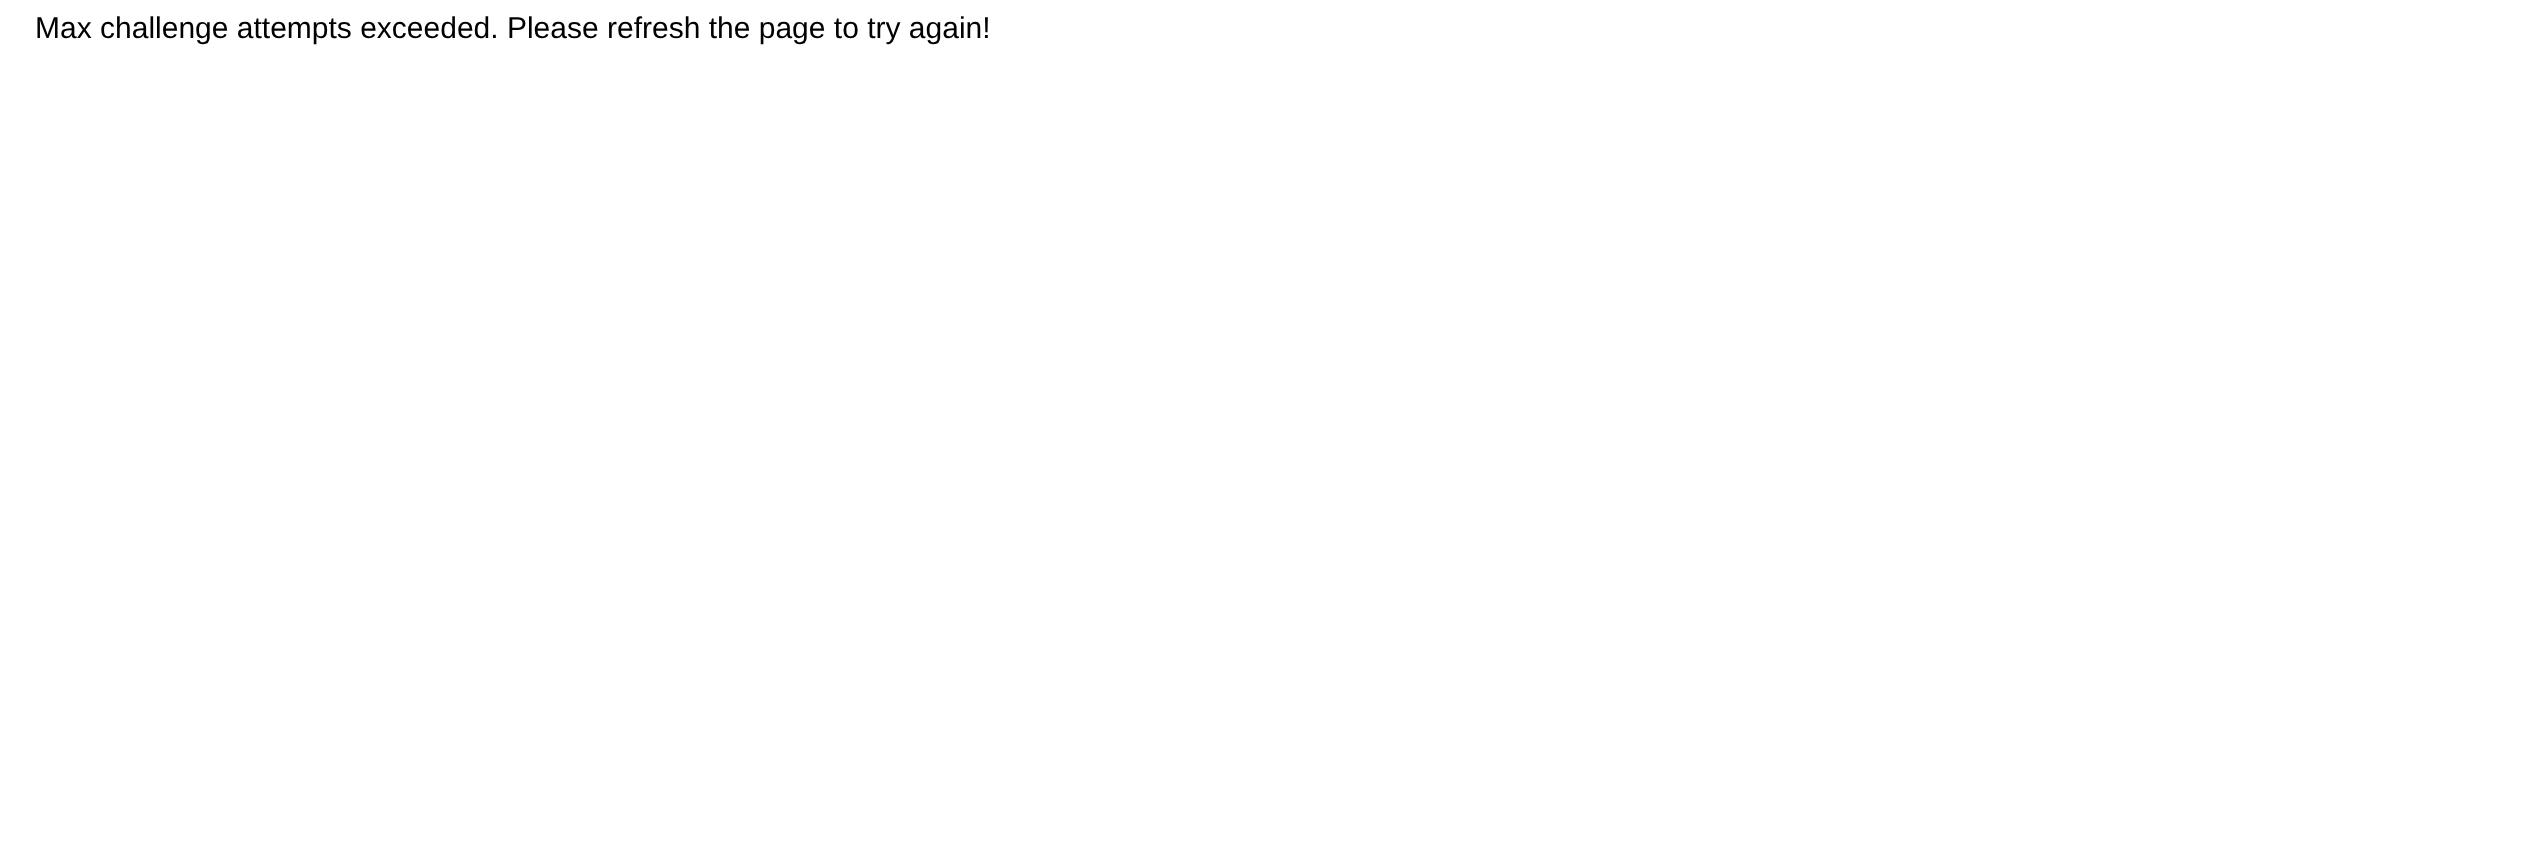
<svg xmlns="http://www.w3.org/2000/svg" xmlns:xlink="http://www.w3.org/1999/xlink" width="2542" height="859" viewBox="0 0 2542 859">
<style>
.cls-1{font:30px Liberation Sans;fill:#000000}
</style>
<rect width="100%" height="100%" fill="#ffffff"/>
<text class="cls-1" x="35" y="38">Max challenge attempts exceeded. Please refresh the page to try again!</text>
</svg>
